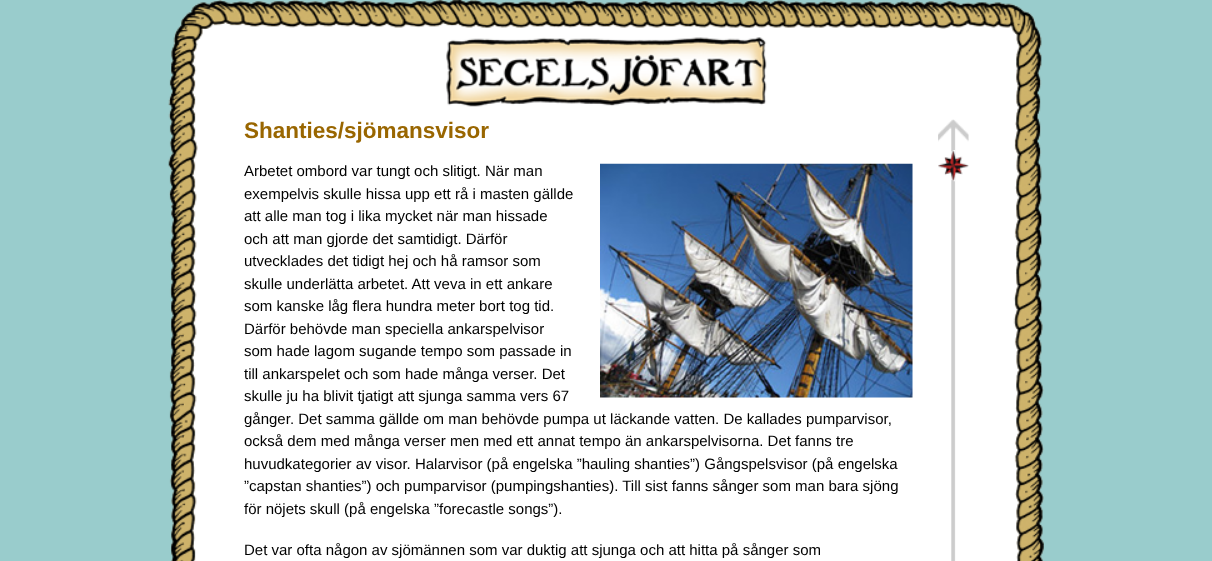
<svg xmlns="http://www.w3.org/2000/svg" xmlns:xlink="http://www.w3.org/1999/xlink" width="1212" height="561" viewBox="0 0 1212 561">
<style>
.cls-1{font:bold 22.5px Liberation Sans;fill:#996600}
.cls-2{font:15px Liberation Sans;fill:#000000}
</style>
<rect width="100%" height="100%" fill="#99cccc"/>
<image xlink:href="image0.png" x="168" y="0" width="876" height="561"/>
<image xlink:href="image1.png" x="446" y="37" width="321" height="70"/>
<image xlink:href="image2.png" x="600" y="163" width="313" height="235"/>
<image xlink:href="image3.png" x="938" y="119" width="31" height="31"/>
<image xlink:href="image5.png" x="951" y="150" width="5" height="411"/>
<image xlink:href="image4.png" x="938" y="150" width="31" height="32"/>
<text class="cls-1" x="244" y="138">Shanties/sjömansvisor</text>
<text class="cls-2"><tspan x="244" y="176">Arbetet ombord var tungt och slitigt. När man</tspan><tspan x="244" y="199">exempelvis skulle hissa upp ett rå i masten gällde</tspan><tspan x="244" y="221">att alle man tog i lika mycket när man hissade</tspan><tspan x="244" y="244">och att man gjorde det samtidigt. Därför</tspan><tspan x="244" y="266">utvecklades det tidigt hej och hå ramsor som</tspan><tspan x="244" y="289">skulle underlätta arbetet. Att veva in ett ankare</tspan><tspan x="244" y="311">som kanske låg flera hundra meter bort tog tid.</tspan><tspan x="244" y="334">Därför behövde man speciella ankarspelvisor</tspan><tspan x="244" y="356">som hade lagom sugande tempo som passade in</tspan><tspan x="244" y="379">till ankarspelet och som hade många verser. Det</tspan><tspan x="244" y="401">skulle ju ha blivit tjatigt att sjunga samma vers 67</tspan><tspan x="244" y="424">gånger. Det samma gällde om man behövde pumpa ut läckande vatten. De kallades pumparvisor,</tspan><tspan x="244" y="446">också dem med många verser men med ett annat tempo än ankarspelvisorna. Det fanns tre</tspan><tspan x="244" y="469">huvudkategorier av visor. Halarvisor (på engelska ”hauling shanties”) Gångspelsvisor (på engelska</tspan><tspan x="244" y="491">”capstan shanties”) och pumparvisor (pumpingshanties). Till sist fanns sånger som man bara sjöng</tspan><tspan x="244" y="514">för nöjets skull (på engelska ”forecastle songs”).</tspan></text>
<text class="cls-2" x="244" y="555">Det var ofta någon av sjömännen som var duktig att sjunga och att hitta på sånger som</text>
</svg>
